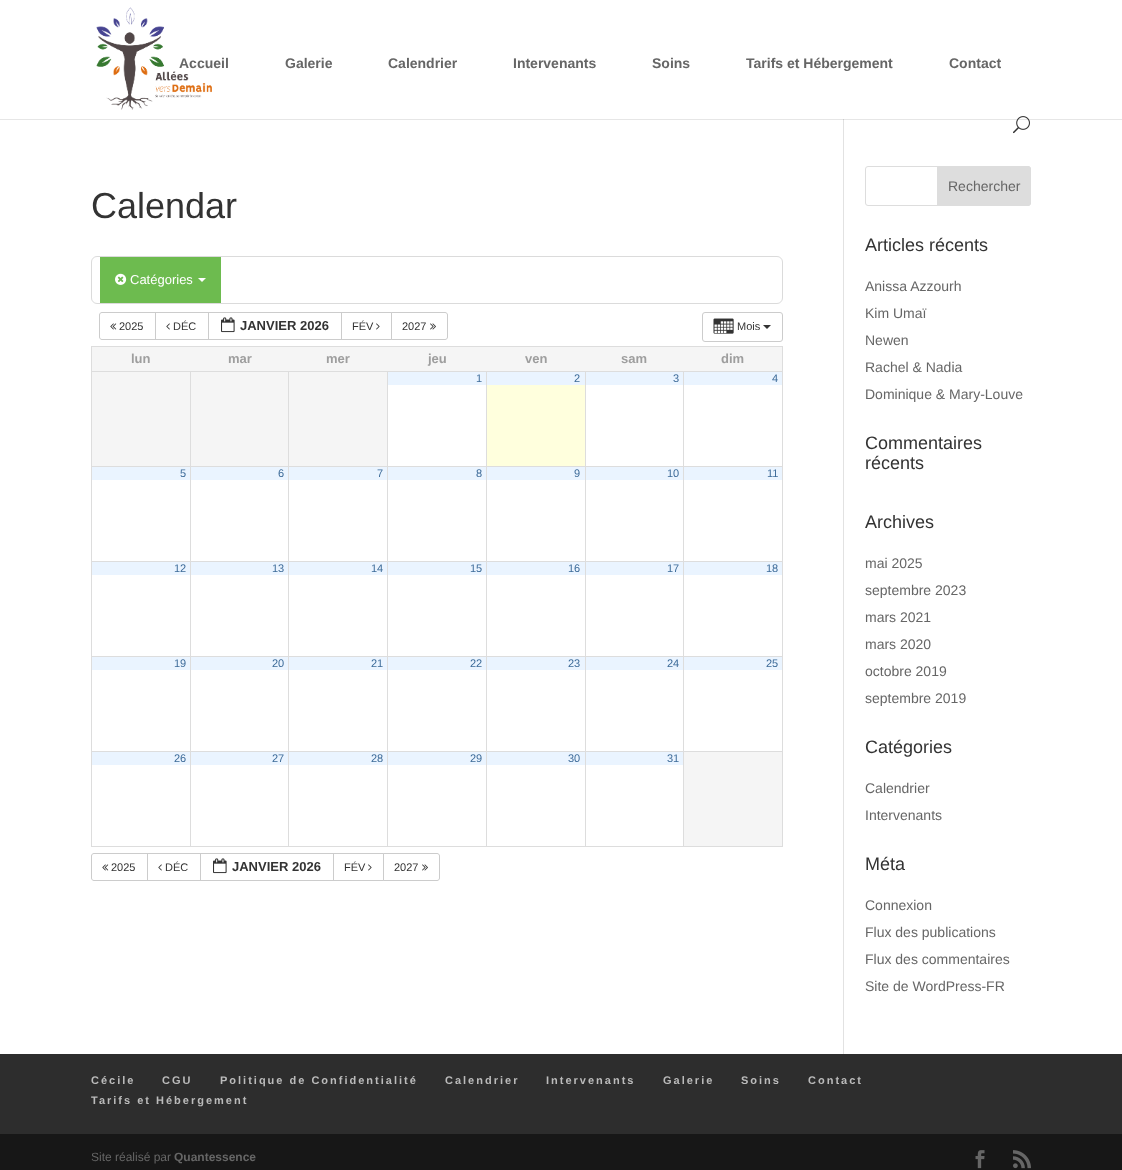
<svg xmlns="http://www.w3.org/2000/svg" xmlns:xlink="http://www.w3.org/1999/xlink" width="1122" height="1170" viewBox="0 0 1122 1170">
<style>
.cls-1{font:bold 14px Liberation Sans;fill:#666666}
.cls-2{font:36px Liberation Sans;fill:#333333}
.cls-3{font:13px Liberation Sans;fill:#ffffff}
.cls-4{font:11px Liberation Sans;fill:#333333}
.cls-5{font:bold 13px Liberation Sans;fill:#333333}
.cls-6{font:bold 13px Liberation Sans;fill:#9e9e9e}
.cls-7{font:11px Liberation Sans;fill:#3d6b99}
.cls-8{font:14px Liberation Sans;fill:#666666}
.cls-9{font:18px Liberation Sans;fill:#333333}
.cls-10{font:bold 11px Liberation Sans;letter-spacing:2px;fill:#bbbbbb}
.cls-11{font:12px Liberation Sans;fill:#666666}
.cls-12{font:bold 12px Liberation Sans;fill:#666666}
</style>
<rect width="100%" height="100%" fill="#ffffff"/>
<rect fill="#e6e6e6" x="0" y="119" width="1122" height="1"/>
<image xlink:href="image0.png" x="96" y="7" width="116" height="103"/>
<image xlink:href="image1.png" x="1013" y="116" width="17" height="18"/>
<rect fill="#e2e2e2" x="843" y="120" width="1" height="934"/>
<rect fill="#cbcbcb" x="843" y="119" width="1" height="1"/>
<rect fill="none" stroke="#dbdbdb" x="91.5" y="256.5" width="691" height="47" rx="5.5"/>
<rect fill="#6dbb4f" x="100" y="257" width="121" height="46"/>
<image xlink:href="image2.png" x="115" y="273" width="12" height="12"/>
<path fill="#ffffff" d="M198 278H206L202 282Z"/>
<path fill="none" stroke="#cccccc" d="M102 312.5H155.5V339.5H102C100.5 339.5 99.5 338.5 99.5 337V315C99.5 313.5 100.5 312.5 102 312.5Z"/>
<image xlink:href="image3.png" x="110" y="323" width="7" height="7"/>
<rect fill="none" stroke="#cccccc" x="155.5" y="312.5" width="53" height="27"/>
<image xlink:href="image4.png" x="166" y="323" width="4" height="7"/>
<rect fill="none" stroke="#cccccc" x="208.5" y="312.5" width="133" height="27"/>
<image xlink:href="image5.png" x="221" y="317" width="14" height="16"/>
<rect fill="none" stroke="#cccccc" x="341.5" y="312.5" width="50" height="27"/>
<image xlink:href="image6.png" x="376" y="323" width="4" height="7"/>
<path fill="#ffffff" stroke="#cccccc" d="M391.5 312.5H445C446.5 312.5 447.5 313.5 447.5 315V337C447.5 338.5 446.5 339.5 445 339.5H391.5Z"/>
<image xlink:href="image7.png" x="430" y="323" width="6" height="7"/>
<rect fill="none" stroke="#cccccc" x="702.5" y="312.5" width="80" height="29" rx="2.5"/>
<image xlink:href="image8.png" x="713" y="318" width="21" height="16"/>
<path fill="#333333" d="M763 325H771L767 329Z"/>
<rect fill="#dddddd" x="91" y="346" width="692" height="1"/>
<rect fill="#dddddd" x="782" y="346" width="1" height="501"/>
<rect fill="#dddddd" x="91" y="846" width="692" height="1"/>
<rect fill="#dddddd" x="91" y="346" width="1" height="501"/>
<rect fill="#f5f5f5" x="92" y="347" width="690" height="24"/>
<rect fill="#f5f5f5" x="92" y="372" width="98" height="94"/>
<rect fill="#dddddd" x="683" y="371" width="100" height="1"/>
<rect fill="#dddddd" x="683" y="466" width="100" height="1"/>
<rect fill="#dddddd" x="683" y="561" width="100" height="1"/>
<rect fill="#dddddd" x="683" y="656" width="100" height="1"/>
<rect fill="#dddddd" x="683" y="751" width="100" height="1"/>
<rect fill="#dddddd" x="683" y="751" width="1" height="96"/>
<rect fill="#dddddd" x="585" y="751" width="99" height="1"/>
<rect fill="#dddddd" x="683" y="656" width="1" height="96"/>
<rect fill="#dddddd" x="585" y="656" width="99" height="1"/>
<rect fill="#dddddd" x="683" y="561" width="1" height="96"/>
<rect fill="#dddddd" x="585" y="561" width="99" height="1"/>
<rect fill="#dddddd" x="683" y="466" width="1" height="96"/>
<rect fill="#dddddd" x="585" y="466" width="99" height="1"/>
<rect fill="#dddddd" x="683" y="371" width="1" height="96"/>
<rect fill="#dddddd" x="585" y="371" width="99" height="1"/>
<rect fill="#dddddd" x="585" y="751" width="1" height="96"/>
<rect fill="#dddddd" x="486" y="751" width="100" height="1"/>
<rect fill="#dddddd" x="585" y="656" width="1" height="96"/>
<rect fill="#dddddd" x="486" y="656" width="100" height="1"/>
<rect fill="#dddddd" x="585" y="561" width="1" height="96"/>
<rect fill="#dddddd" x="486" y="561" width="100" height="1"/>
<rect fill="#dddddd" x="585" y="466" width="1" height="96"/>
<rect fill="#dddddd" x="486" y="466" width="100" height="1"/>
<rect fill="#dddddd" x="585" y="371" width="1" height="96"/>
<rect fill="#dddddd" x="486" y="371" width="100" height="1"/>
<rect fill="#dddddd" x="486" y="751" width="1" height="96"/>
<rect fill="#dddddd" x="387" y="751" width="100" height="1"/>
<rect fill="#dddddd" x="486" y="656" width="1" height="96"/>
<rect fill="#dddddd" x="387" y="656" width="100" height="1"/>
<rect fill="#dddddd" x="486" y="561" width="1" height="96"/>
<rect fill="#dddddd" x="387" y="561" width="100" height="1"/>
<rect fill="#dddddd" x="486" y="466" width="1" height="96"/>
<rect fill="#dddddd" x="387" y="466" width="100" height="1"/>
<rect fill="#dddddd" x="486" y="371" width="1" height="96"/>
<rect fill="#dddddd" x="387" y="371" width="100" height="1"/>
<rect fill="#dddddd" x="387" y="751" width="1" height="96"/>
<rect fill="#dddddd" x="288" y="751" width="100" height="1"/>
<rect fill="#dddddd" x="387" y="656" width="1" height="96"/>
<rect fill="#dddddd" x="288" y="656" width="100" height="1"/>
<rect fill="#dddddd" x="387" y="561" width="1" height="96"/>
<rect fill="#dddddd" x="288" y="561" width="100" height="1"/>
<rect fill="#dddddd" x="387" y="466" width="1" height="96"/>
<rect fill="#dddddd" x="288" y="466" width="100" height="1"/>
<rect fill="#dddddd" x="387" y="371" width="1" height="96"/>
<rect fill="#dddddd" x="288" y="371" width="100" height="1"/>
<rect fill="#dddddd" x="288" y="751" width="1" height="96"/>
<rect fill="#dddddd" x="190" y="751" width="99" height="1"/>
<rect fill="#dddddd" x="288" y="656" width="1" height="96"/>
<rect fill="#dddddd" x="190" y="656" width="99" height="1"/>
<rect fill="#dddddd" x="288" y="561" width="1" height="96"/>
<rect fill="#dddddd" x="190" y="561" width="99" height="1"/>
<rect fill="#dddddd" x="288" y="466" width="1" height="96"/>
<rect fill="#dddddd" x="190" y="466" width="99" height="1"/>
<rect fill="#dddddd" x="288" y="371" width="1" height="96"/>
<rect fill="#dddddd" x="190" y="371" width="99" height="1"/>
<rect fill="#dddddd" x="190" y="751" width="1" height="96"/>
<rect fill="#dddddd" x="91" y="751" width="100" height="1"/>
<rect fill="#dddddd" x="190" y="656" width="1" height="96"/>
<rect fill="#dddddd" x="91" y="656" width="100" height="1"/>
<rect fill="#dddddd" x="190" y="561" width="1" height="96"/>
<rect fill="#dddddd" x="91" y="561" width="100" height="1"/>
<rect fill="#dddddd" x="190" y="466" width="1" height="96"/>
<rect fill="#dddddd" x="91" y="466" width="100" height="1"/>
<rect fill="#dddddd" x="190" y="371" width="1" height="96"/>
<rect fill="#dddddd" x="91" y="371" width="100" height="1"/>
<rect fill="#f5f5f5" x="191" y="372" width="97" height="94"/>
<rect fill="#f5f5f5" x="289" y="372" width="98" height="94"/>
<rect fill="#eaf4ff" x="388" y="372" width="98" height="13"/>
<rect fill="#ffffdd" x="487" y="385" width="98" height="81"/>
<rect fill="#eaf4ff" x="487" y="372" width="98" height="13"/>
<rect fill="#eaf4ff" x="586" y="372" width="97" height="13"/>
<rect fill="#eaf4ff" x="684" y="372" width="98" height="13"/>
<rect fill="#eaf4ff" x="92" y="467" width="98" height="13"/>
<rect fill="#eaf4ff" x="191" y="467" width="97" height="13"/>
<rect fill="#eaf4ff" x="289" y="467" width="98" height="13"/>
<rect fill="#eaf4ff" x="388" y="467" width="98" height="13"/>
<rect fill="#eaf4ff" x="487" y="467" width="98" height="13"/>
<rect fill="#eaf4ff" x="586" y="467" width="97" height="13"/>
<rect fill="#eaf4ff" x="684" y="467" width="98" height="13"/>
<rect fill="#eaf4ff" x="92" y="562" width="98" height="13"/>
<rect fill="#eaf4ff" x="191" y="562" width="97" height="13"/>
<rect fill="#eaf4ff" x="289" y="562" width="98" height="13"/>
<rect fill="#eaf4ff" x="388" y="562" width="98" height="13"/>
<rect fill="#eaf4ff" x="487" y="562" width="98" height="13"/>
<rect fill="#eaf4ff" x="586" y="562" width="97" height="13"/>
<rect fill="#eaf4ff" x="684" y="562" width="98" height="13"/>
<rect fill="#eaf4ff" x="92" y="657" width="98" height="13"/>
<rect fill="#eaf4ff" x="191" y="657" width="97" height="13"/>
<rect fill="#eaf4ff" x="289" y="657" width="98" height="13"/>
<rect fill="#eaf4ff" x="388" y="657" width="98" height="13"/>
<rect fill="#eaf4ff" x="487" y="657" width="98" height="13"/>
<rect fill="#eaf4ff" x="586" y="657" width="97" height="13"/>
<rect fill="#eaf4ff" x="684" y="657" width="98" height="13"/>
<rect fill="#eaf4ff" x="92" y="752" width="98" height="13"/>
<rect fill="#eaf4ff" x="191" y="752" width="97" height="13"/>
<rect fill="#eaf4ff" x="289" y="752" width="98" height="13"/>
<rect fill="#eaf4ff" x="388" y="752" width="98" height="13"/>
<rect fill="#eaf4ff" x="487" y="752" width="98" height="13"/>
<rect fill="#eaf4ff" x="586" y="752" width="97" height="13"/>
<rect fill="#f5f5f5" x="684" y="752" width="98" height="94"/>
<path fill="none" stroke="#cccccc" d="M94 853.5H147.5V880.5H94C92.5 880.5 91.5 879.5 91.5 878V856C91.5 854.5 92.5 853.5 94 853.5Z"/>
<image xlink:href="image3.png" x="102" y="864" width="7" height="7"/>
<rect fill="none" stroke="#cccccc" x="147.5" y="853.5" width="53" height="27"/>
<image xlink:href="image4.png" x="158" y="864" width="4" height="7"/>
<rect fill="none" stroke="#cccccc" x="200.5" y="853.5" width="133" height="27"/>
<image xlink:href="image5.png" x="213" y="858" width="14" height="16"/>
<rect fill="none" stroke="#cccccc" x="333.5" y="853.5" width="50" height="27"/>
<image xlink:href="image6.png" x="368" y="864" width="4" height="7"/>
<path fill="#ffffff" stroke="#cccccc" d="M383.5 853.5H437C438.5 853.5 439.5 854.5 439.5 856V878C439.5 879.5 438.5 880.5 437 880.5H383.5Z"/>
<image xlink:href="image7.png" x="422" y="864" width="6" height="7"/>
<rect fill="none" stroke="#dddddd" x="865.5" y="166.5" width="165" height="39" rx="2.5"/>
<path fill="#dddddd" stroke="#dddddd" d="M937.5 166.5H1028C1029.5 166.5 1030.5 167.5 1030.5 169V203C1030.5 204.5 1029.5 205.5 1028 205.5H937.5Z"/>
<rect fill="#2d2d2d" x="0" y="1054" width="1122" height="80"/>
<rect fill="#171717" x="0" y="1134" width="1122" height="36"/>
<image xlink:href="image9.png" x="975" y="1150" width="10" height="19"/>
<image xlink:href="image10.png" x="1013" y="1150" width="18" height="19"/>
<text class="cls-1" x="179" y="68">Accueil</text>
<text class="cls-1" x="285" y="68">Galerie</text>
<text class="cls-1" x="388" y="68">Calendrier</text>
<text class="cls-1" x="513" y="68">Intervenants</text>
<text class="cls-1" x="652" y="68">Soins</text>
<text class="cls-1" x="746" y="68">Tarifs et Hébergement</text>
<text class="cls-1" x="949" y="68">Contact</text>
<text class="cls-2" x="91" y="218">Calendar</text>
<text class="cls-3" x="130" y="284">Catégories</text>
<text class="cls-4" x="119" y="330">2025</text>
<text class="cls-4" x="173" y="330">DÉC</text>
<text class="cls-5" x="240" y="330">JANVIER 2026</text>
<text class="cls-4" x="352" y="330">FÉV</text>
<text class="cls-4" x="402" y="330">2027</text>
<text class="cls-4" x="737" y="330">Mois</text>
<text class="cls-6" x="131" y="363">lun</text>
<text class="cls-6" x="228" y="363">mar</text>
<text class="cls-6" x="326" y="363">mer</text>
<text class="cls-6" x="428" y="363">jeu</text>
<text class="cls-6" x="525" y="363">ven</text>
<text class="cls-6" x="621" y="363">sam</text>
<text class="cls-6" x="721" y="363">dim</text>
<text class="cls-7" x="476" y="382">1</text>
<text class="cls-7" x="574" y="382">2</text>
<text class="cls-7" x="673" y="382">3</text>
<text class="cls-7" x="772" y="382">4</text>
<text class="cls-7" x="180" y="477">5</text>
<text class="cls-7" x="278" y="477">6</text>
<text class="cls-7" x="377" y="477">7</text>
<text class="cls-7" x="476" y="477">8</text>
<text class="cls-7" x="574" y="477">9</text>
<text class="cls-7" x="667" y="477">10</text>
<text class="cls-7" x="767" y="477">11</text>
<text class="cls-7" x="174" y="572">12</text>
<text class="cls-7" x="272" y="572">13</text>
<text class="cls-7" x="371" y="572">14</text>
<text class="cls-7" x="470" y="572">15</text>
<text class="cls-7" x="568" y="572">16</text>
<text class="cls-7" x="667" y="572">17</text>
<text class="cls-7" x="766" y="572">18</text>
<text class="cls-7" x="174" y="667">19</text>
<text class="cls-7" x="272" y="667">20</text>
<text class="cls-7" x="371" y="667">21</text>
<text class="cls-7" x="470" y="667">22</text>
<text class="cls-7" x="568" y="667">23</text>
<text class="cls-7" x="667" y="667">24</text>
<text class="cls-7" x="766" y="667">25</text>
<text class="cls-7" x="174" y="762">26</text>
<text class="cls-7" x="272" y="762">27</text>
<text class="cls-7" x="371" y="762">28</text>
<text class="cls-7" x="470" y="762">29</text>
<text class="cls-7" x="568" y="762">30</text>
<text class="cls-7" x="667" y="762">31</text>
<text class="cls-4" x="111" y="871">2025</text>
<text class="cls-4" x="165" y="871">DÉC</text>
<text class="cls-5" x="232" y="871">JANVIER 2026</text>
<text class="cls-4" x="344" y="871">FÉV</text>
<text class="cls-4" x="394" y="871">2027</text>
<text class="cls-8" x="948" y="191">Rechercher</text>
<text class="cls-9" x="865" y="251">Articles récents</text>
<text class="cls-8"><tspan x="865" y="291">Anissa Azzourh</tspan><tspan x="865" y="318">Kim Umaï</tspan><tspan x="865" y="345">Newen</tspan><tspan x="865" y="372">Rachel &amp; Nadia</tspan><tspan x="865" y="399">Dominique &amp; Mary-Louve</tspan></text>
<text class="cls-9"><tspan x="865" y="449">Commentaires</tspan><tspan x="865" y="469">récents</tspan></text>
<text class="cls-9" x="865" y="528">Archives</text>
<text class="cls-8"><tspan x="865" y="568">mai 2025</tspan><tspan x="865" y="595">septembre 2023</tspan><tspan x="865" y="622">mars 2021</tspan><tspan x="865" y="649">mars 2020</tspan><tspan x="865" y="676">octobre 2019</tspan><tspan x="865" y="703">septembre 2019</tspan></text>
<text class="cls-9" x="865" y="753">Catégories</text>
<text class="cls-8"><tspan x="865" y="793">Calendrier</tspan><tspan x="865" y="820">Intervenants</tspan></text>
<text class="cls-9" x="865" y="870">Méta</text>
<text class="cls-8"><tspan x="865" y="910">Connexion</tspan><tspan x="865" y="937">Flux des publications</tspan><tspan x="865" y="964">Flux des commentaires</tspan><tspan x="865" y="991">Site de WordPress-FR</tspan></text>
<text class="cls-10" x="91" y="1084">Cécile</text>
<text class="cls-10" x="162" y="1084">CGU</text>
<text class="cls-10" x="220" y="1084">Politique de Confidentialité</text>
<text class="cls-10" x="445" y="1084">Calendrier</text>
<text class="cls-10" x="546" y="1084">Intervenants</text>
<text class="cls-10" x="663" y="1084">Galerie</text>
<text class="cls-10" x="741" y="1084">Soins</text>
<text class="cls-10" x="808" y="1084">Contact</text>
<text class="cls-10" x="91" y="1104">Tarifs et Hébergement</text>
<text class="cls-11" x="91" y="1161">Site réalisé par</text>
<text class="cls-12" x="174" y="1161">Quantessence</text>
</svg>
